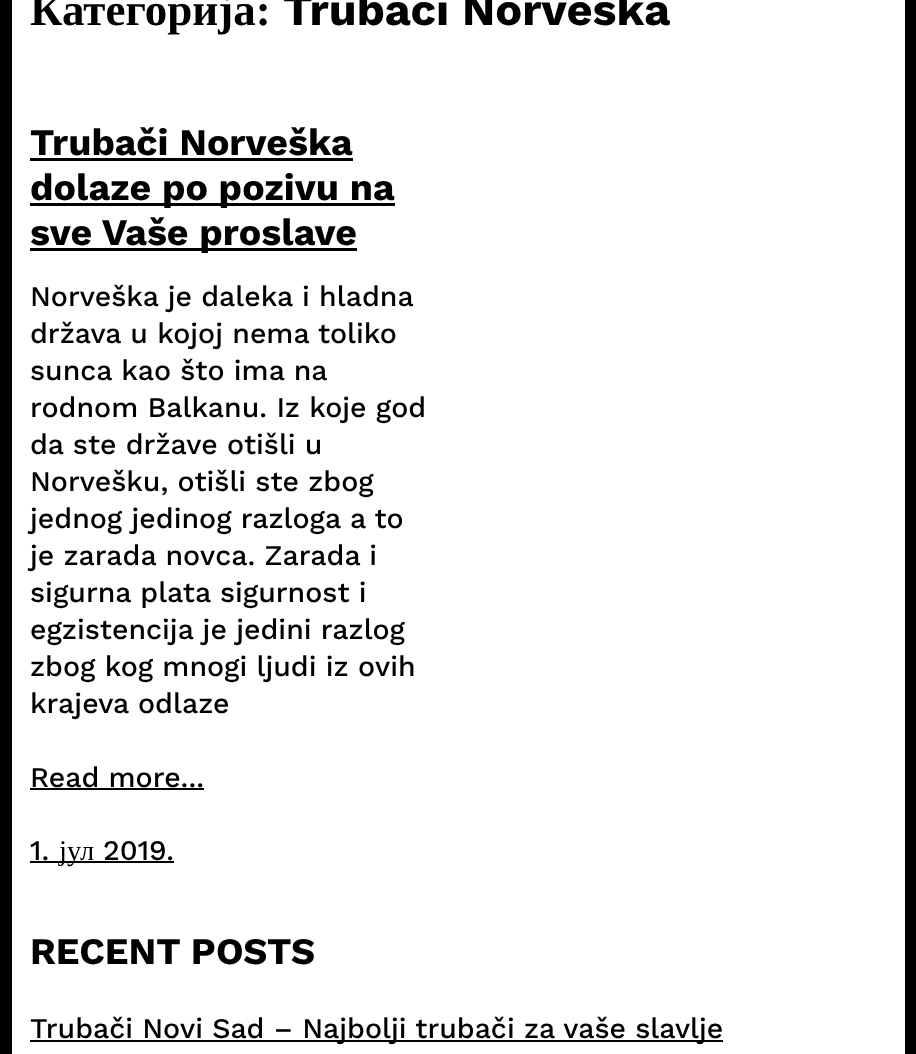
<svg xmlns="http://www.w3.org/2000/svg" xmlns:xlink="http://www.w3.org/1999/xlink" width="916" height="1054" viewBox="0 0 916 1054">
<style>
.cls-1{font:bold 45px Liberation Serif;fill:#000000}
.cls-2{font:bold 45px Work Sans;fill:#000000}
.cls-3{font:bold 37.5px Work Sans;fill:#000000}
.cls-4{font:500 28.5px Work Sans;fill:#000000}
.cls-5{font:28.5px Liberation Serif;fill:#000000}
</style>
<rect width="100%" height="100%" fill="#ffffff"/>
<rect fill="none" stroke="#000000" stroke-width="12" x="6" y="-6" width="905" height="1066"/>
<rect fill="#000000" x="30" y="158" width="323" height="3"/>
<rect fill="#000000" x="30" y="203" width="365" height="3"/>
<rect fill="#000000" x="30" y="248" width="327" height="3"/>
<rect fill="#000000" x="30" y="788" width="174" height="2"/>
<rect fill="#000000" x="30" y="861" width="144" height="2"/>
<rect fill="#000000" x="30" y="1040" width="693" height="2"/>
<text class="cls-1" x="30" y="25">Категорија:</text>
<text class="cls-2" x="283" y="25">Trubači Norveška</text>
<text class="cls-3"><tspan x="30" y="155">Trubači Norveška</tspan><tspan x="30" y="200">dolaze po pozivu na</tspan><tspan x="30" y="245">sve Vaše proslave</tspan></text>
<text class="cls-4"><tspan x="30" y="306">Norveška je daleka i hladna</tspan><tspan x="30" y="343">država u kojoj nema toliko</tspan><tspan x="30" y="380">sunca kao što ima na</tspan><tspan x="30" y="417">rodnom Balkanu. Iz koje god</tspan><tspan x="30" y="454">da ste države otišli u</tspan><tspan x="30" y="491">Norvešku, otišli ste zbog</tspan><tspan x="30" y="528">jednog jedinog razloga a to</tspan><tspan x="30" y="565">je zarada novca. Zarada i</tspan><tspan x="30" y="602">sigurna plata sigurnost i</tspan><tspan x="30" y="639">egzistencija je jedini razlog</tspan><tspan x="30" y="676">zbog kog mnogi ljudi iz ovih</tspan><tspan x="30" y="713">krajeva odlaze</tspan></text>
<text class="cls-4" x="30" y="787">Read more...</text>
<text class="cls-4" x="30" y="860">1.</text>
<text class="cls-5" x="59" y="860">јул</text>
<text class="cls-4" x="103" y="860">2019.</text>
<text class="cls-3" x="30" y="964">RECENT POSTS</text>
<text class="cls-4" x="30" y="1038">Trubači Novi Sad – Najbolji trubači za vaše slavlje</text>
</svg>
